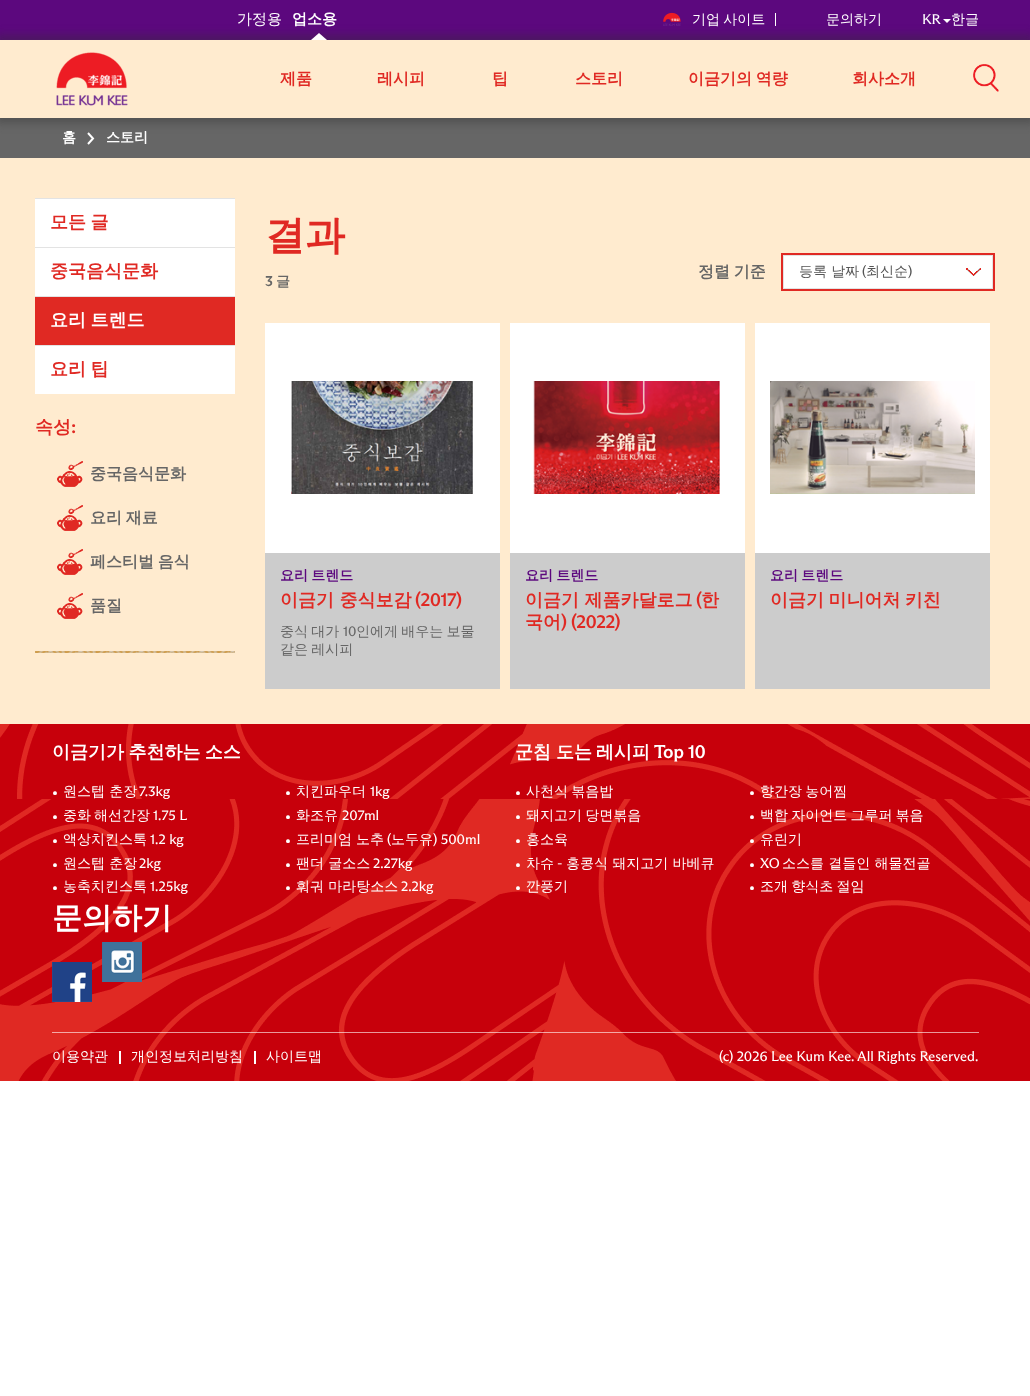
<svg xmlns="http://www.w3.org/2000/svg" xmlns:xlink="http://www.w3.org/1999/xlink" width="1030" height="1396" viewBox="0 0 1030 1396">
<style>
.cls-1{font:500 15px WenQuanYi Zen Hei;fill:#ffffff}
.cls-2{font:bold 15px WenQuanYi Zen Hei;fill:#ffffff}
.cls-3{font:500 14px WenQuanYi Zen Hei;fill:#ffffff}
.cls-4{font:14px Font;fill:#ffffff}
.cls-5{font:bold 16px WenQuanYi Zen Hei;fill:#e02923}
.cls-6{font:bold 14px WenQuanYi Zen Hei;fill:#ffffff}
.cls-7{font:bold 18px WenQuanYi Zen Hei;fill:#e02923}
.cls-8{font:bold 18px WenQuanYi Zen Hei;fill:#ffffff}
.cls-9{font:bold 18px Font;fill:#e02923}
.cls-10{font:bold 16px WenQuanYi Zen Hei;fill:#666666}
.cls-11{font:bold 40px WenQuanYi Zen Hei;fill:#e02923}
.cls-12{font:bold 14px Font;fill:#666666}
.cls-13{font:bold 14px WenQuanYi Zen Hei;fill:#666666}
.cls-14{font:500 14px WenQuanYi Zen Hei;fill:#555555}
.cls-15{font:14px Font;fill:#555555}
.cls-16{font:bold 14px WenQuanYi Zen Hei;fill:#5c087e}
.cls-17{font:500 14px WenQuanYi Zen Hei;fill:#666666}
.cls-18{font:14px Font;fill:#666666}
.cls-19{font:bold 18px Font;fill:#ffffff}
.cls-20{font:bold 30px WenQuanYi Zen Hei;fill:#ffffff}
</style>
<rect width="100%" height="100%" fill="#ffffff"/>
<rect fill="#ffebcf" x="0" y="158" width="1030" height="566"/>
<rect fill="#5c087e" x="0" y="0" width="1030" height="40"/>
<rect fill="#666666" x="0" y="118" width="1030" height="40"/>
<path fill="none" stroke="#ffffff" stroke-width="2" d="M88 133L93 138.5L88 144"/>
<rect fill="#333333" fill-opacity="0.4" filter="blur(5px)" x="-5" y="35" width="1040" height="88"/>
<path fill="#ffffff" d="M327 40H311L319 33Z"/>
<image xlink:href="image0.png" x="663" y="12" width="18" height="14"/>
<rect fill="#ffffff" x="775" y="13" width="1" height="13"/>
<path fill="#ffffff" d="M943 19H951L947 23Z"/>
<rect fill="#ffebcf" x="0" y="40" width="1030" height="78"/>
<image xlink:href="image1.png" x="56" y="52" width="72" height="54"/>
<image xlink:href="image2.png" x="973" y="64" width="26" height="28"/>
<rect fill="#ffffff" x="35" y="199" width="200" height="48"/>
<rect fill="#e3e3e3" x="35" y="198" width="200" height="1"/>
<rect fill="#ffffff" x="35" y="248" width="200" height="48"/>
<rect fill="#e3e3e3" x="35" y="247" width="200" height="1"/>
<rect fill="#e3e3e3" x="35" y="296" width="200" height="1"/>
<rect fill="#e02923" x="35" y="297" width="200" height="48"/>
<rect fill="#ffffff" x="35" y="346" width="200" height="48"/>
<rect fill="#e3e3e3" x="35" y="345" width="200" height="1"/>
<image xlink:href="image3.png" x="35" y="651" width="200" height="2"/>
<image xlink:href="image4.png" x="57" y="461" width="26" height="26"/>
<image xlink:href="image4.png" x="57" y="505" width="26" height="26"/>
<image xlink:href="image4.png" x="57" y="549" width="26" height="26"/>
<image xlink:href="image4.png" x="57" y="593" width="26" height="26"/>
<rect fill="none" stroke="#e02923" stroke-width="2" x="782" y="254" width="212" height="36"/>
<rect fill="#ffffff" stroke="#e3e3e3" x="783.5" y="255.5" width="209" height="33"/>
<image xlink:href="image5.png" x="966" y="268" width="15" height="8"/>
<rect fill="#cccccc" x="265" y="553" width="235" height="136"/>
<rect fill="#ffffff" x="265" y="323" width="235" height="230"/>
<image xlink:href="image6.png" x="291" y="381" width="182" height="113"/>
<rect fill="#cccccc" x="510" y="553" width="235" height="136"/>
<rect fill="#ffffff" x="510" y="323" width="235" height="230"/>
<image xlink:href="image7.png" x="533" y="381" width="187" height="113"/>
<rect fill="#cccccc" x="755" y="553" width="235" height="136"/>
<rect fill="#ffffff" x="755" y="323" width="235" height="230"/>
<image xlink:href="image8.png" x="770" y="381" width="205" height="113"/>
<image xlink:href="image9.png" x="0" y="724" width="1030" height="357"/>
<image xlink:href="image10.png" x="52" y="962" width="40" height="40"/>
<image xlink:href="image11.png" x="102" y="942" width="40" height="40"/>
<rect fill="#ffffff" fill-opacity="0.6" x="52" y="1032" width="927" height="1"/>
<rect fill="#ffffff" x="119" y="1051" width="2" height="13"/>
<rect fill="#ffffff" x="254" y="1051" width="2" height="13"/>
<text class="cls-1" x="237" y="24">가정용</text>
<text class="cls-2" x="292" y="24">업소용</text>
<text class="cls-3" x="692" y="24" word-spacing="-1">기업 사이트</text>
<text class="cls-3" x="826" y="24">문의하기</text>
<text class="cls-4" x="922" y="24">KR</text>
<text class="cls-3" x="951" y="24">한글</text>
<text class="cls-5" x="280" y="84">제품</text>
<text class="cls-5" x="377" y="84">레시피</text>
<text class="cls-5" x="492" y="84">팁</text>
<text class="cls-5" x="575" y="84">스토리</text>
<text class="cls-5" x="688" y="84" word-spacing="-1">이금기의 역량</text>
<text class="cls-5" x="852" y="84">회사소개</text>
<text class="cls-6" x="62" y="142">홈</text>
<text class="cls-6" x="106" y="142">스토리</text>
<text class="cls-7" x="50" y="228" word-spacing="-1">모든 글</text>
<text class="cls-7" x="50" y="277">중국음식문화</text>
<text class="cls-8" x="50" y="326" word-spacing="-1">요리 트렌드</text>
<text class="cls-7" x="50" y="375" word-spacing="-1">요리 팁</text>
<text class="cls-7" x="35" y="433">속성</text>
<text class="cls-9" x="71" y="433">:</text>
<text class="cls-10" x="90" y="479">중국음식문화</text>
<text class="cls-10" x="90" y="523" word-spacing="-1">요리 재료</text>
<text class="cls-10" x="90" y="567" word-spacing="-1">페스티벌 음식</text>
<text class="cls-10" x="90" y="611">품질</text>
<text class="cls-11" x="265" y="249">결과</text>
<text class="cls-12" x="265" y="286">3</text>
<text class="cls-13" x="276" y="286">글</text>
<text class="cls-10" x="698" y="277" word-spacing="-1">정렬 기준</text>
<text class="cls-14" x="799" y="276">등록 날짜</text>
<text class="cls-15" x="862" y="276">(</text>
<text class="cls-14" x="866" y="276">최신순</text>
<text class="cls-15" x="908" y="276">)</text>
<text class="cls-16" x="280" y="580" word-spacing="-1">요리 트렌드</text>
<text class="cls-7" x="280" y="606">이금기 중식보감</text>
<text class="cls-9" x="415" y="606">(2017)</text>
<text class="cls-17" x="280" y="636" word-spacing="-1">중식 대가</text>
<text class="cls-18" x="343" y="636">10</text>
<text class="cls-17" x="356" y="636" word-spacing="-1">인에게 배우는 보물</text>
<text class="cls-17" x="280" y="654" word-spacing="-1">같은 레시피</text>
<text class="cls-16" x="525" y="580" word-spacing="-1">요리 트렌드</text>
<text class="cls-7" x="525" y="606">이금기 제품카달로그</text>
<text class="cls-9" x="696" y="606">(</text>
<text class="cls-7" x="701" y="606">한</text>
<text class="cls-7" x="525" y="628">국어</text>
<text class="cls-9" x="561" y="628">) (2022)</text>
<text class="cls-16" x="770" y="580" word-spacing="-1">요리 트렌드</text>
<text class="cls-7" x="770" y="606" word-spacing="-1">이금기 미니어처 키친</text>
<text class="cls-8" x="52" y="758" word-spacing="-1">이금기가 추천하는 소스</text>
<text class="cls-4" x="52" y="797">•</text>
<text class="cls-3" x="63" y="796">원스텝 춘장</text>
<text class="cls-4" x="139" y="796">7.3kg</text>
<text class="cls-4" x="285" y="797">•</text>
<text class="cls-3" x="296" y="796">치킨파우더</text>
<text class="cls-4" x="370" y="796">1kg</text>
<text class="cls-4" x="52" y="821">•</text>
<text class="cls-3" x="63" y="820">중화</text>
<text class="cls-3" x="94" y="820">해선간장</text>
<text class="cls-4" x="153" y="820">1.75 L</text>
<text class="cls-4" x="285" y="821">•</text>
<text class="cls-3" x="296" y="820">화조유</text>
<text class="cls-4" x="342" y="820">207ml</text>
<text class="cls-4" x="52" y="845">•</text>
<text class="cls-3" x="63" y="844">액상치킨스톡</text>
<text class="cls-4" x="150" y="844">1.2 kg</text>
<text class="cls-4" x="285" y="845">•</text>
<text class="cls-3" x="296" y="844">프리미엄</text>
<text class="cls-3" x="356" y="844">노추</text>
<text class="cls-4" x="387" y="844">(</text>
<text class="cls-3" x="391" y="844">노두유</text>
<text class="cls-4" x="433" y="844">) 500ml</text>
<text class="cls-4" x="52" y="869">•</text>
<text class="cls-3" x="63" y="868">원스텝 춘장</text>
<text class="cls-4" x="139" y="868">2kg</text>
<text class="cls-4" x="285" y="869">•</text>
<text class="cls-3" x="296" y="868">팬더 굴소스</text>
<text class="cls-4" x="373" y="868">2.27kg</text>
<text class="cls-4" x="52" y="892">•</text>
<text class="cls-3" x="63" y="891">농축치킨스톡</text>
<text class="cls-4" x="150" y="891">1.25kg</text>
<text class="cls-4" x="285" y="892">•</text>
<text class="cls-3" x="296" y="891">훠궈 마라탕소스</text>
<text class="cls-4" x="401" y="891">2.2kg</text>
<text class="cls-8" x="515" y="758">군침</text>
<text class="cls-8" x="556" y="758">도는</text>
<text class="cls-8" x="596" y="758">레시피</text>
<text class="cls-19" x="654" y="758">Top 10</text>
<text class="cls-4" x="515" y="797">•</text>
<text class="cls-3" x="526" y="796" word-spacing="-1">사천식 볶음밥</text>
<text class="cls-4" x="749" y="797">•</text>
<text class="cls-3" x="760" y="796" word-spacing="-1">향간장 농어찜</text>
<text class="cls-4" x="515" y="821">•</text>
<text class="cls-3" x="526" y="820" word-spacing="-1">돼지고기 당면볶음</text>
<text class="cls-4" x="749" y="821">•</text>
<text class="cls-3" x="760" y="820" word-spacing="-1">백합 자이언트 그루퍼 볶음</text>
<text class="cls-4" x="515" y="845">•</text>
<text class="cls-3" x="526" y="844">홍소육</text>
<text class="cls-4" x="749" y="845">•</text>
<text class="cls-3" x="760" y="844">유린기</text>
<text class="cls-4" x="515" y="869">•</text>
<text class="cls-3" x="526" y="868">차슈</text>
<text class="cls-4" x="557" y="868">-</text>
<text class="cls-3" x="566" y="868">홍콩식 돼지고기 바베큐</text>
<text class="cls-4" x="749" y="869">•</text>
<text class="cls-4" x="760" y="868">XO</text>
<text class="cls-3" x="782" y="868">소스를 곁들인 해물전골</text>
<text class="cls-4" x="515" y="892">•</text>
<text class="cls-3" x="526" y="891">깐풍기</text>
<text class="cls-4" x="749" y="892">•</text>
<text class="cls-3" x="760" y="891" word-spacing="-1">조개 향식초 절임</text>
<text class="cls-20" x="52" y="928">문의하기</text>
<text class="cls-3" x="52" y="1061">이용약관</text>
<text class="cls-3" x="131" y="1061">개인정보처리방침</text>
<text class="cls-3" x="266" y="1061">사이트맵</text>
<text class="cls-4" x="719" y="1061">(c) 2026 Lee Kum Kee. All Rights Reserved.</text>
</svg>
